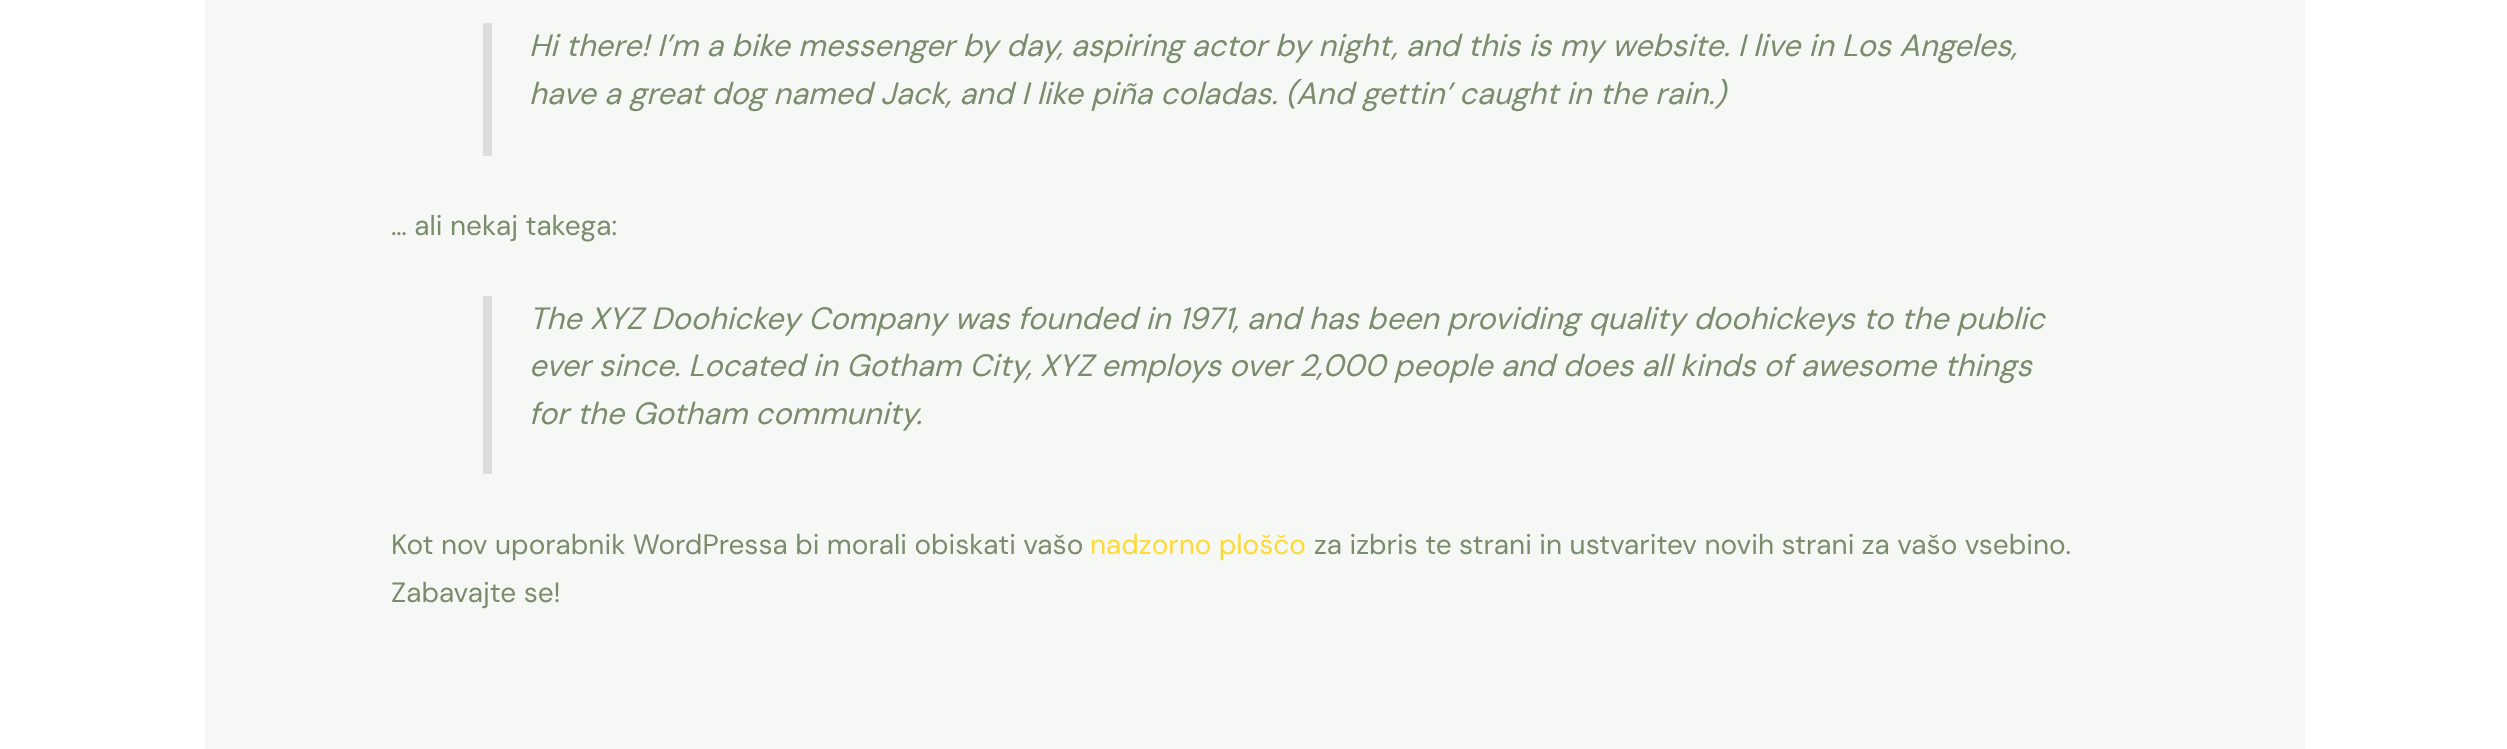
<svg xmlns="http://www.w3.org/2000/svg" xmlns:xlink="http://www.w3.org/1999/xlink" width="2507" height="749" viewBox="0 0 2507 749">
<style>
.cls-1{font:italic 30.8px DM Sans;fill:#7b8c6d}
.cls-2{font:28px DM Sans;fill:#7b8c6d}
.cls-3{font:28px DM Sans;fill:#ffd936}
</style>
<rect width="100%" height="100%" fill="#ffffff"/>
<rect fill="#f6f8f5" x="205" y="0" width="2100" height="749"/>
<rect fill="#dddddd" x="483" y="23" width="9" height="133"/>
<rect fill="#dddddd" x="483" y="296" width="9" height="178"/>
<text class="cls-1"><tspan x="529" y="56">Hi there! I’m a bike messenger by day, aspiring actor by night, and this is my website. I live in Los Angeles,</tspan><tspan x="529" y="104">have a great dog named Jack, and I like piña coladas. (And gettin’ caught in the rain.)</tspan></text>
<text class="cls-2" x="391" y="235">… ali nekaj takega:</text>
<text class="cls-1"><tspan x="529" y="329">The XYZ Doohickey Company was founded in 1971, and has been providing quality doohickeys to the public</tspan><tspan x="529" y="376">ever since. Located in Gotham City, XYZ employs over 2,000 people and does all kinds of awesome things</tspan><tspan x="529" y="424">for the Gotham community.</tspan></text>
<text class="cls-2" x="391" y="554">Kot nov uporabnik WordPressa bi morali obiskati vašo</text>
<text class="cls-3" x="1090" y="554">nadzorno ploščo</text>
<text class="cls-2" x="1314" y="554">za izbris te strani in ustvaritev novih strani za vašo vsebino.</text>
<text class="cls-2" x="391" y="602">Zabavajte se!</text>
</svg>
